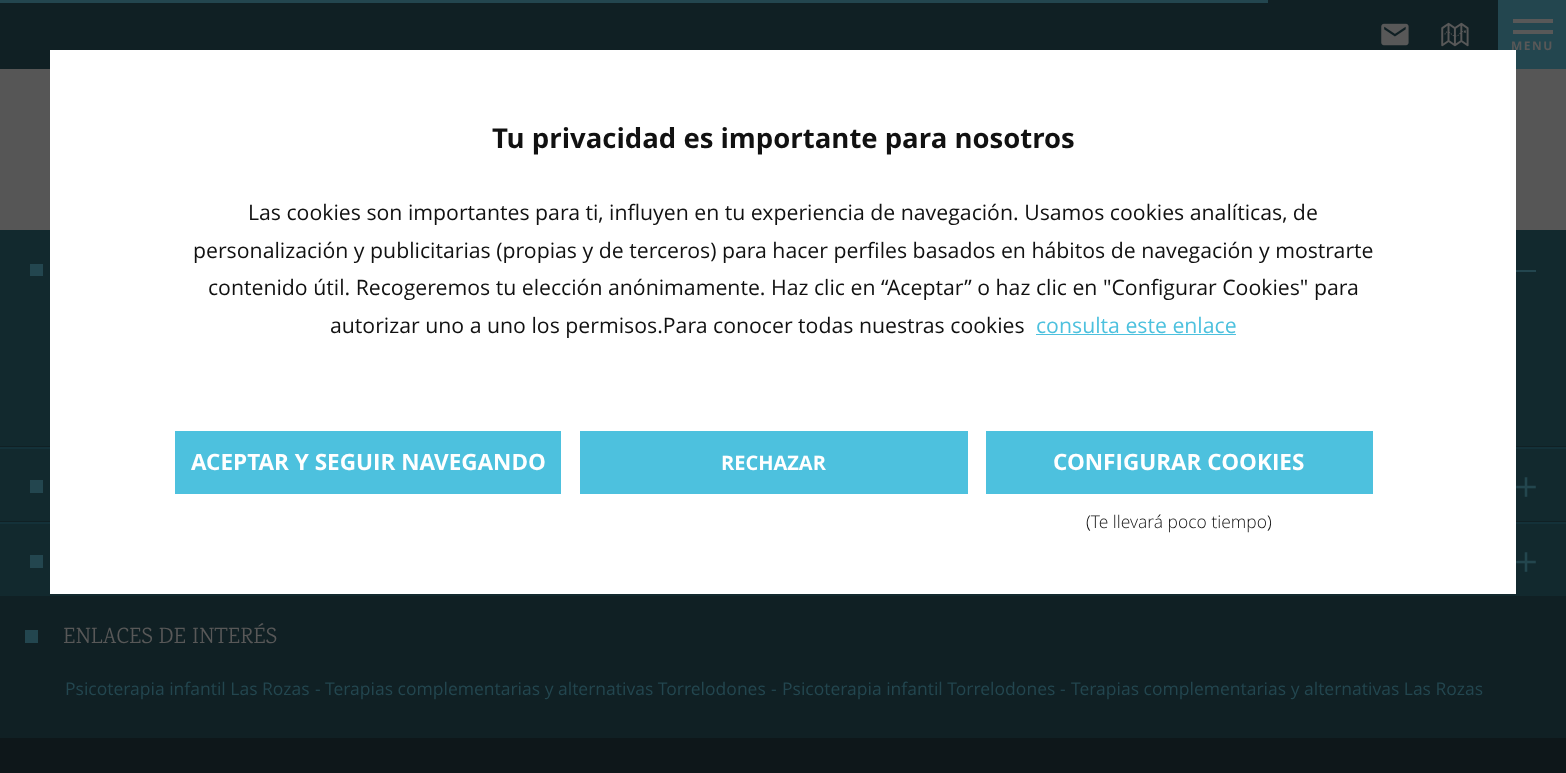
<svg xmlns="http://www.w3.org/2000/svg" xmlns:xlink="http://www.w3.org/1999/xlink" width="1566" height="773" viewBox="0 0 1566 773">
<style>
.cls-1{font:bold 12px Open Sans;letter-spacing:1.5px;fill:#585858}
.cls-2{font:bold 27.5px Open Sans;fill:#111111}
.cls-3{font:21.25px Open Sans;fill:#111111}
.cls-4{font:21.25px Open Sans;fill:#4dc1de}
.cls-5{font:bold 22.5px Open Sans;fill:#ffffff}
.cls-6{font:bold 20px Open Sans;fill:#ffffff}
.cls-7{font:300 17.5px Open Sans;fill:#111111}
.cls-8{font:22.5px Karma;fill:#585858}
.cls-9{font:17.5px Open Sans;fill:#23464f}
</style>
<rect width="100%" height="100%" fill="#565656"/>
<rect fill="#102024" x="0" y="0" width="1498" height="69"/>
<rect fill="#23464f" x="0" y="0" width="1268" height="3"/>
<image xlink:href="image0.png" x="1381" y="23" width="28" height="23"/>
<image xlink:href="image1.png" x="1441" y="22" width="28" height="25"/>
<rect fill="#23464f" x="1498" y="0" width="68" height="69"/>
<rect fill="#585858" x="1513" y="19" width="40" height="4"/>
<rect fill="#585858" x="1513" y="30" width="40" height="4"/>
<rect fill="#12292e" x="0" y="230" width="1566" height="366"/>
<rect fill="#23464f" x="30" y="264" width="13" height="12"/>
<rect fill="#23464f" x="1516" y="270" width="20" height="2"/>
<rect fill="#143139" x="0" y="447" width="1566" height="2"/>
<rect fill="#102024" x="0" y="446" width="1566" height="1"/>
<rect fill="#23464f" x="30" y="480" width="13" height="13"/>
<image xlink:href="image2.png" x="1516" y="477" width="20" height="20"/>
<rect fill="#143139" x="0" y="522" width="1566" height="2"/>
<rect fill="#102024" x="0" y="521" width="1566" height="1"/>
<rect fill="#23464f" x="30" y="555" width="13" height="13"/>
<image xlink:href="image2.png" x="1516" y="552" width="20" height="20"/>
<rect fill="#102024" x="0" y="596" width="1566" height="142"/>
<rect fill="#23464f" x="25" y="630" width="13" height="13"/>
<rect fill="#0e171a" x="0" y="738" width="1566" height="35"/>
<text class="cls-1" x="1511" y="50">MENU</text>
<rect fill="#ffffff" x="50" y="50" width="1466" height="544"/>
<text class="cls-2" x="492" y="148">Tu privacidad es importante para nosotros</text>
<text class="cls-3" x="248" y="220">Las cookies son importantes para ti, influyen en tu experiencia de navegación. Usamos cookies analíticas, de</text>
<text class="cls-3" x="193" y="258">personalización y publicitarias (propias y de terceros) para hacer perfiles basados en hábitos de navegación y mostrarte</text>
<text class="cls-3" x="208" y="295">contenido útil. Recogeremos tu elección anónimamente. Haz clic en “Aceptar” o haz clic en "Configurar Cookies" para</text>
<text class="cls-3" x="330" y="333">autorizar uno a uno los permisos.Para conocer todas nuestras cookies</text>
<text class="cls-4" x="1036" y="333">consulta este enlace</text>
<rect fill="#4dc1de" x="1036" y="334" width="200" height="1"/>
<rect fill="#4dc1de" x="175" y="431" width="386" height="63"/>
<text class="cls-5" x="191" y="470">ACEPTAR Y SEGUIR NAVEGANDO</text>
<rect fill="#4dc1de" x="580" y="431" width="388" height="63"/>
<text class="cls-6" x="721" y="470">RECHAZAR</text>
<rect fill="#4dc1de" x="986" y="431" width="387" height="63"/>
<text class="cls-5" x="1053" y="470">CONFIGURAR COOKIES</text>
<text class="cls-7" x="1086" y="528">(Te llevará poco tiempo)</text>
<text class="cls-8" x="63" y="643">ENLACES DE INTERÉS</text>
<text class="cls-9" x="65" y="695">Psicoterapia infantil Las Rozas</text>
<text class="cls-9" x="315" y="695">-</text>
<text class="cls-9" x="325" y="695">Terapias complementarias y alternativas Torrelodones</text>
<text class="cls-9" x="771" y="695">-</text>
<text class="cls-9" x="782" y="695">Psicoterapia infantil Torrelodones</text>
<text class="cls-9" x="1060" y="695">-</text>
<text class="cls-9" x="1071" y="695">Terapias complementarias y alternativas Las Rozas</text>
</svg>
